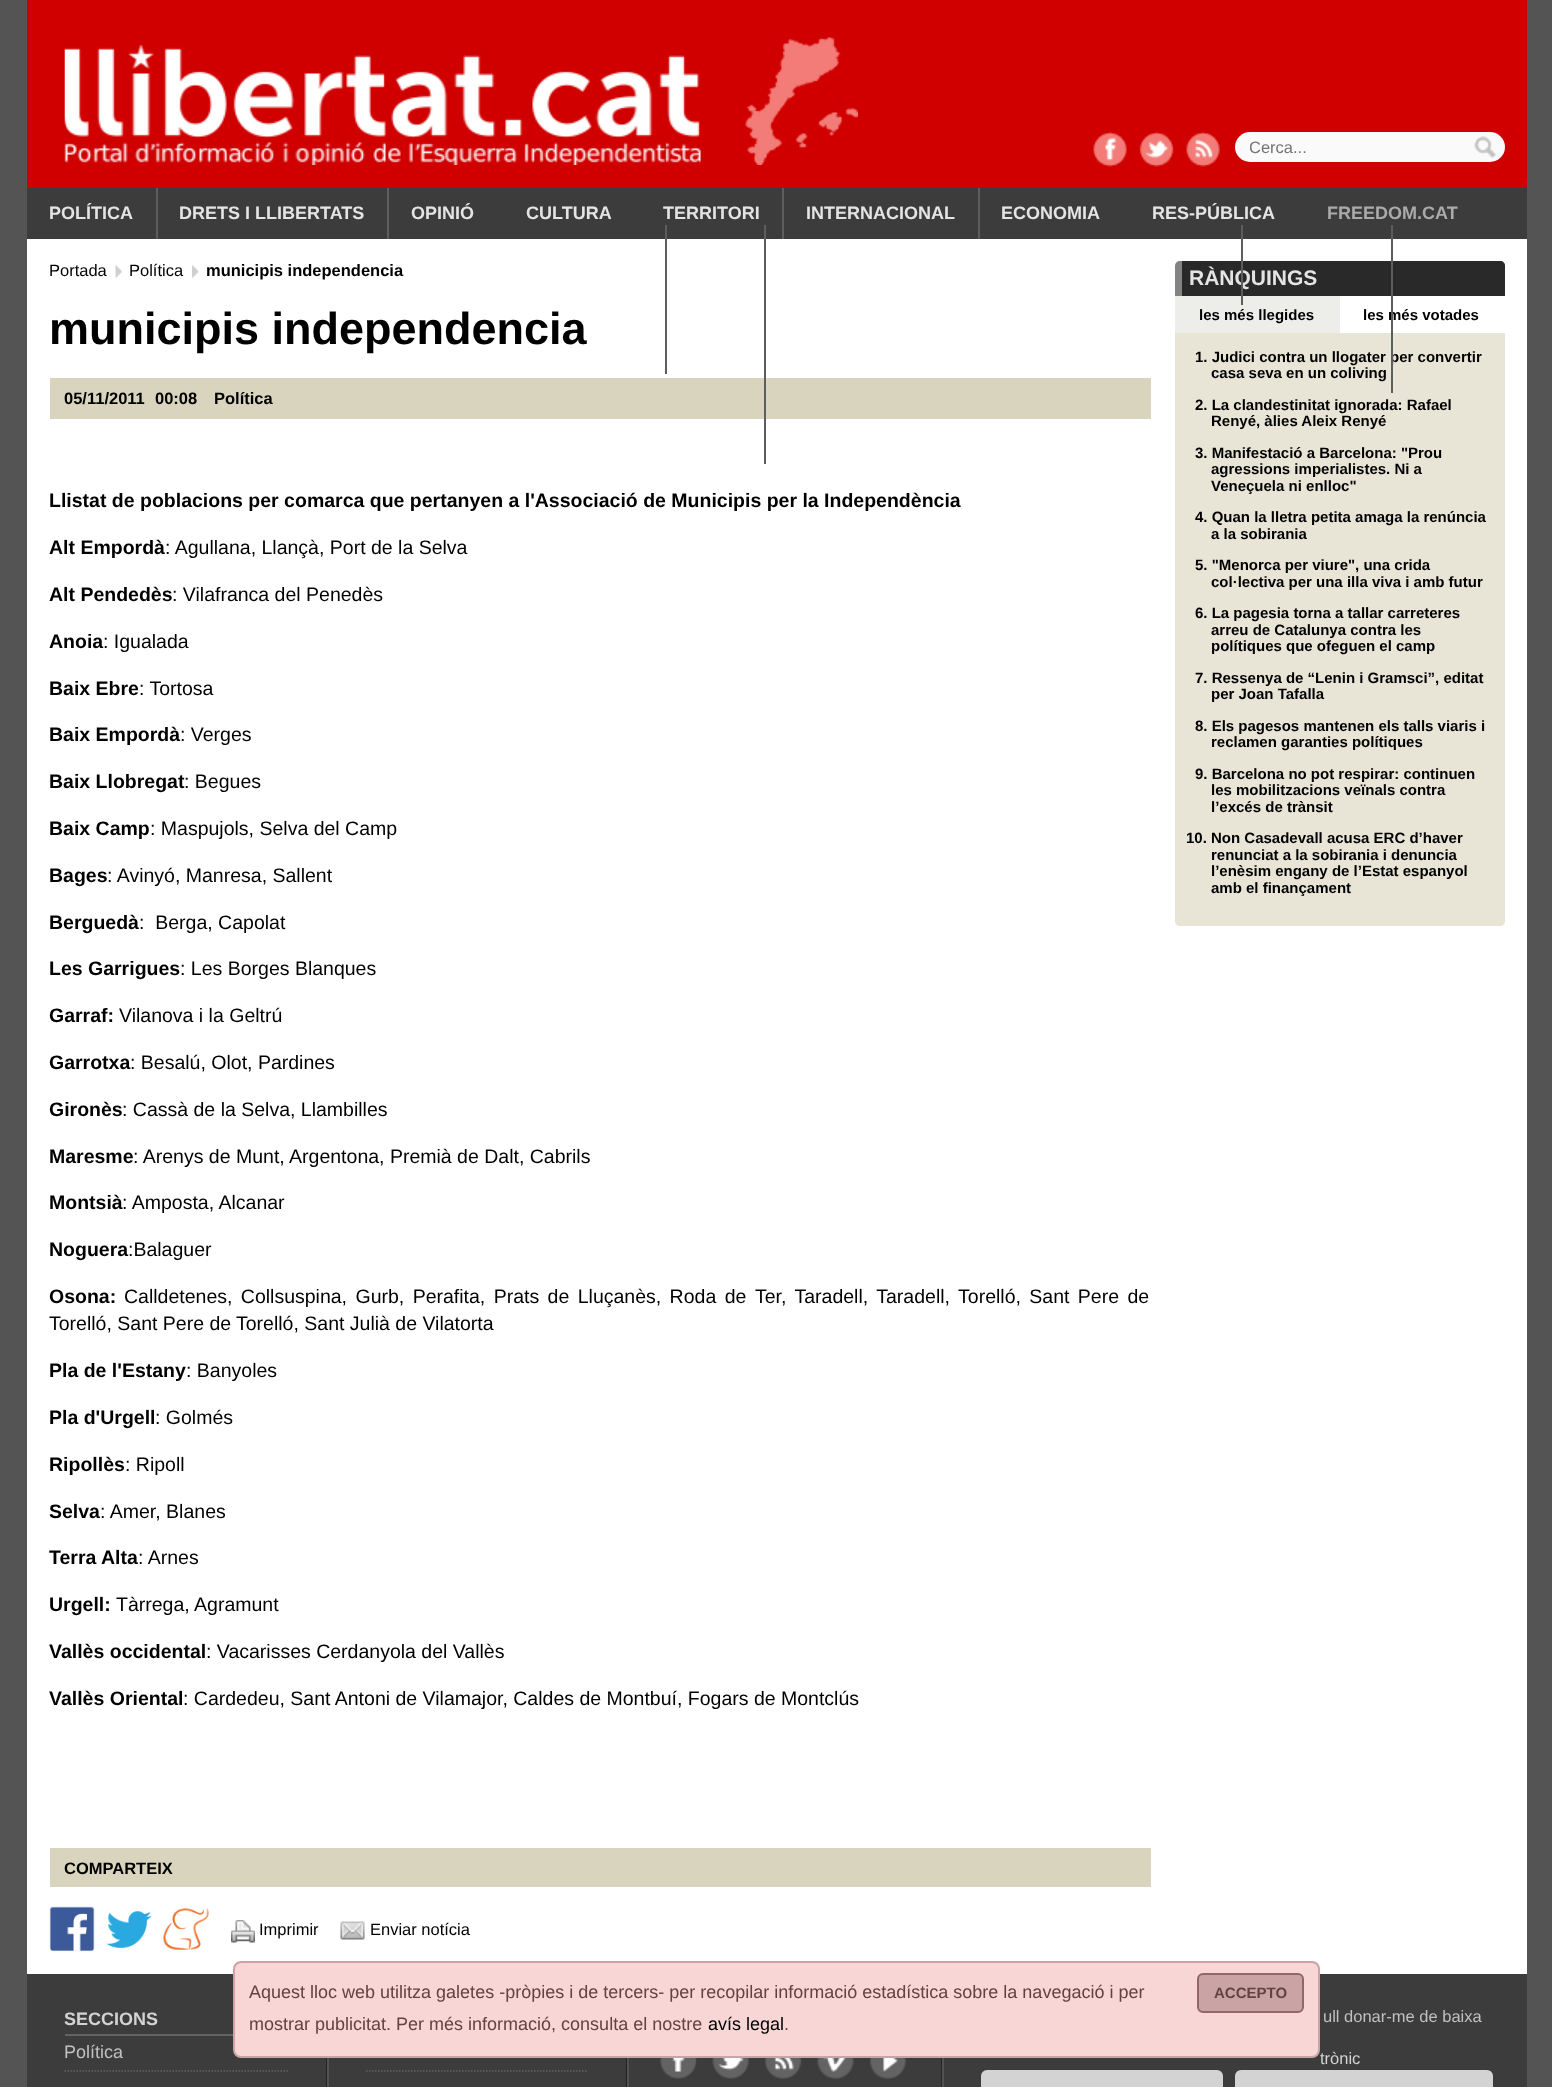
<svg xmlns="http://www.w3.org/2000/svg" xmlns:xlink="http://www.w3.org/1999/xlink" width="1552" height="2087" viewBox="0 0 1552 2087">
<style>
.cls-1{font:16.5px Liberation Sans;fill:#757575}
.cls-2{font:bold 18px Liberation Sans;fill:#e4e4e4}
.cls-3{font:bold 18px Liberation Sans;fill:#aaaaaa}
.cls-4{font:18px Liberation Sans;fill:#644242}
.cls-5{font:bold 15px Liberation Sans;fill:#644242}
.cls-6{font:18px Liberation Sans;fill:#000000}
.cls-7{font:16.5px Liberation Sans;fill:#000000}
.cls-8{font:bold 16.5px Liberation Sans;fill:#000000}
.cls-9{font:bold 45px Liberation Sans;fill:#000000}
.cls-10{font:bold 19.5px Liberation Sans;fill:#000000}
.cls-11{font:19.5px Liberation Sans;fill:#000000}
.cls-12{font:bold 21px Liberation Sans;fill:#e4e4e4}
.cls-13{font:bold 15px Liberation Sans;fill:#000000}
.cls-14{font:bold 18px Liberation Sans;fill:#d3d3d3}
.cls-15{font:18px Liberation Sans;fill:#c0c0c0}
.cls-16{font:16.5px Liberation Sans;fill:#c0c0c0}
.cls-17{font:16.5px Liberation Sans;fill:#d3d3d3}
</style>
<defs>
<clipPath id="clip1"><rect x="1250" y="138" width="222" height="18"/></clipPath>
</defs>
<rect width="100%" height="100%" fill="#545454"/>
<rect fill="#d00000" x="27" y="0" width="1500" height="188"/>
<image xlink:href="image0.png" x="745" y="37" width="113" height="128"/>
<image xlink:href="image1.png" x="64" y="45" width="637" height="120"/>
<image xlink:href="image2.png" x="1093" y="132" width="34" height="35"/>
<image xlink:href="image3.png" x="1139" y="132" width="35" height="35"/>
<image xlink:href="image4.png" x="1186" y="132" width="34" height="35"/>
<rect fill="#fafafa" x="1235" y="132" width="270" height="30" rx="15"/>
<image xlink:href="image5.png" x="1474" y="136" width="22" height="22"/>
<rect fill="#3c3c3c" x="27" y="188" width="1500" height="51"/>
<rect fill="#5d5d5d" x="156" y="188" width="2" height="51"/>
<rect fill="#5d5d5d" x="387" y="188" width="2" height="51"/>
<rect fill="#ffffff" x="27" y="239" width="1500" height="1735"/>
<rect fill="#5d5d5d" x="665" y="225" width="2" height="149"/>
<rect fill="#d9d4bd" x="50" y="378" width="1101" height="41"/>
<rect fill="#5d5d5d" x="764" y="225" width="2" height="239"/>
<rect fill="#5d5d5d" x="782" y="188" width="2" height="51"/>
<rect fill="#5d5d5d" x="978" y="188" width="2" height="51"/>
<rect fill="#3c3c3c" x="27" y="1974" width="1500" height="113"/>
<rect fill="#f8d6d6" stroke="#caa4a4" stroke-width="2" x="234" y="1962" width="1085" height="95" rx="7"/>
<rect fill="#caa4a4" stroke="#916767" stroke-width="2" x="1198" y="1974" width="105" height="38" rx="5"/>
<image xlink:href="image6.png" x="115" y="265" width="7" height="13"/>
<image xlink:href="image7.png" x="192" y="265" width="6" height="13"/>
<rect fill="#d9d4bd" x="50" y="1848" width="1101" height="39"/>
<image xlink:href="image8.png" x="49" y="1906" width="46" height="46"/>
<image xlink:href="image9.png" x="106" y="1911" width="46" height="37"/>
<image xlink:href="image10.png" x="163" y="1908" width="46" height="42"/>
<image xlink:href="image11.png" x="231" y="1920" width="24" height="23"/>
<image xlink:href="image12.png" x="340" y="1921" width="25" height="19"/>
<path fill="#838383" d="M1180 261H1500C1503 261 1505 263 1505 266V296H1175V266C1175 263 1177 261 1180 261Z"/>
<path fill="#292929" d="M1182 261H1500C1503 261 1505 263 1505 266V296H1182Z"/>
<rect fill="#ededea" x="1175" y="296" width="165" height="37"/>
<path fill="#e8e5d7" d="M1175 333H1505V921C1505 924 1503 926 1500 926H1180C1177 926 1175 924 1175 921Z"/>
<rect fill="#252525" x="326" y="2058" width="1" height="29"/>
<rect fill="#636363" x="65" y="2034" width="168" height="2"/>
<path fill="none" stroke="#636363" stroke-width="1.5" stroke-dasharray="1.5 1.5" d="M64.5 2071H288"/>
<rect fill="#525252" x="942" y="2058" width="2" height="29"/>
<rect fill="#d3d3d3" x="1235" y="2070" width="258" height="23" rx="6"/>
<rect fill="#d3d3d3" x="981" y="2070" width="242" height="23" rx="6"/>
<rect fill="#252525" x="626" y="2058" width="1" height="29"/>
<rect fill="#525252" x="327" y="2058" width="2" height="29"/>
<path fill="none" stroke="#636363" stroke-width="1.5" stroke-dasharray="1.5 1.5" d="M366 2071H588"/>
<rect fill="#252525" x="941" y="2058" width="1" height="29"/>
<rect fill="#525252" x="627" y="2058" width="2" height="29"/>
<image xlink:href="image13.png" x="660" y="2058" width="37" height="21"/>
<image xlink:href="image14.png" x="712" y="2058" width="37" height="21"/>
<image xlink:href="image15.png" x="765" y="2058" width="37" height="21"/>
<image xlink:href="image16.png" x="817" y="2058" width="37" height="21"/>
<image xlink:href="image17.png" x="870" y="2058" width="37" height="21"/>
<g clip-path="url(#clip1)">
<text class="cls-1" x="1249" y="153">Cerca...</text>
</g>
<text class="cls-2" x="49" y="219">POLÍTICA</text>
<text class="cls-2" x="179" y="219">DRETS I LLIBERTATS</text>
<text class="cls-2" x="411" y="219">OPINIÓ</text>
<text class="cls-2" x="526" y="219">CULTURA</text>
<text class="cls-2" x="663" y="219">TERRITORI</text>
<text class="cls-2" x="806" y="219">INTERNACIONAL</text>
<text class="cls-2" x="1001" y="219">ECONOMIA</text>
<text class="cls-2" x="1152" y="219">RES-PÚBLICA</text>
<text class="cls-3" x="1327" y="219">FREEDOM.CAT</text>
<text class="cls-4" x="249" y="1998">Aquest lloc web utilitza galetes -pròpies i de tercers- per recopilar informació estadística sobre la navegació i per</text>
<text class="cls-5" x="1214" y="1998">ACCEPTO</text>
<text class="cls-4" x="249" y="2030">mostrar publicitat. Per més informació, consulta el nostre</text>
<text class="cls-6" x="708" y="2030">avís legal</text>
<text class="cls-4" x="784" y="2030">.</text>
<text class="cls-7" x="49" y="276">Portada</text>
<text class="cls-7" x="129" y="276">Política</text>
<text class="cls-8" x="206" y="276">municipis independencia</text>
<text class="cls-9" x="49" y="344">municipis independencia</text>
<text class="cls-8" x="64" y="404">05/11/2011</text>
<text class="cls-8" x="155" y="404">00:08</text>
<text class="cls-8" x="214" y="404">Política</text>
<text class="cls-10" x="49" y="507">Llistat de poblacions per comarca que pertanyen a l'Associació de Municipis per la Independència</text>
<text class="cls-10" x="49" y="554">Alt Empordà</text>
<text class="cls-11" x="165" y="554">: Agullana, Llançà, Port de la Selva</text>
<text class="cls-10" x="49" y="601">Alt Pendedès</text>
<text class="cls-11" x="172" y="601">: Vilafranca del Penedès</text>
<text class="cls-10" x="49" y="648">Anoia</text>
<text class="cls-11" x="103" y="648">: Igualada</text>
<text class="cls-10" x="49" y="695">Baix Ebre</text>
<text class="cls-11" x="139" y="695">: Tortosa</text>
<text class="cls-10" x="49" y="741">Baix Empordà</text>
<text class="cls-11" x="180" y="741">: Verges</text>
<text class="cls-10" x="49" y="788">Baix Llobregat</text>
<text class="cls-11" x="184" y="788">: Begues</text>
<text class="cls-10" x="49" y="835">Baix Camp</text>
<text class="cls-11" x="150" y="835">: Maspujols, Selva del Camp</text>
<text class="cls-10" x="49" y="882">Bages</text>
<text class="cls-11" x="107" y="882">: Avinyó, Manresa, Sallent</text>
<text class="cls-10" x="49" y="929">Berguedà</text>
<text class="cls-11" xml:space="preserve" x="139" y="929">:  Berga, Capolat</text>
<text class="cls-10" x="49" y="975">Les Garrigues</text>
<text class="cls-11" x="180" y="975">: Les Borges Blanques</text>
<text class="cls-10" x="49" y="1022">Garraf:</text>
<text class="cls-11" x="119" y="1022">Vilanova i la Geltrú</text>
<text class="cls-10" x="49" y="1069">Garrotxa</text>
<text class="cls-11" x="130" y="1069">: Besalú, Olot, Pardines</text>
<text class="cls-10" x="49" y="1116">Gironès</text>
<text class="cls-11" x="122" y="1116">: Cassà de la Selva, Llambilles</text>
<text class="cls-10" x="49" y="1163">Maresme</text>
<text class="cls-11" x="133" y="1163">: Arenys de Munt, Argentona, Premià de Dalt, Cabrils</text>
<text class="cls-10" x="49" y="1209">Montsià</text>
<text class="cls-11" x="122" y="1209">: Amposta, Alcanar</text>
<text class="cls-10" x="49" y="1256">Noguera</text>
<text class="cls-11" x="128" y="1256">:Balaguer</text>
<text class="cls-10" x="49" y="1303">Osona:</text>
<text class="cls-11" x="124" y="1303" word-spacing="3">Calldetenes, Collsuspina, Gurb, Perafita, Prats de Lluçanès, Roda de</text>
<text class="cls-11" x="755" y="1303" word-spacing="3">Ter, Taradell, Taradell, Torelló, Sant Pere de</text>
<text class="cls-11" x="49" y="1330">Torelló, Sant Pere de</text>
<text class="cls-11" x="236" y="1330">Torelló, Sant Julià de Vilatorta</text>
<text class="cls-10" x="49" y="1377">Pla de l'Estany</text>
<text class="cls-11" x="186" y="1377">: Banyoles</text>
<text class="cls-10" x="49" y="1424">Pla d'Urgell</text>
<text class="cls-11" x="155" y="1424">: Golmés</text>
<text class="cls-10" x="49" y="1471">Ripollès</text>
<text class="cls-11" x="125" y="1471">: Ripoll</text>
<text class="cls-10" x="49" y="1518">Selva</text>
<text class="cls-11" x="100" y="1518">: Amer, Blanes</text>
<text class="cls-10" x="49" y="1564">Terra Alta</text>
<text class="cls-11" x="138" y="1564">: Arnes</text>
<text class="cls-10" x="49" y="1611">Urgell:</text>
<text class="cls-11" x="116" y="1611">Tàrrega, Agramunt</text>
<text class="cls-10" x="49" y="1658">Vallès occidental</text>
<text class="cls-11" x="206" y="1658">: Vacarisses Cerdanyola del Vallès</text>
<text class="cls-10" x="49" y="1705">Vallès Oriental</text>
<text class="cls-11" x="183" y="1705">: Cardedeu, Sant Antoni de Vilamajor, Caldes de Montbuí, Fogars de Montclús</text>
<text class="cls-8" x="64" y="1874">COMPARTEIX</text>
<text class="cls-7" x="259" y="1935">Imprimir</text>
<text class="cls-7" x="370" y="1935">Enviar notícia</text>
<text class="cls-12" x="1189" y="285">RÀNQUINGS</text>
<rect fill="#5d5d5d" x="1241" y="225" width="2" height="80"/>
<text class="cls-13" x="1199" y="320">les més llegides</text>
<text class="cls-13" x="1363" y="320">les més votades</text>
<text class="cls-13" x="1195" y="362">1. Judici contra un llogater per convertir</text>
<rect fill="#5d5d5d" x="1391" y="225" width="2" height="168"/>
<text class="cls-13" x="1211" y="378">casa seva en un coliving</text>
<text class="cls-13" x="1195" y="410">2. La clandestinitat ignorada: Rafael</text>
<text class="cls-13" x="1211" y="426">Renyé, àlies Aleix Renyé</text>
<text class="cls-13" x="1195" y="458">3. Manifestació a Barcelona: "Prou</text>
<text class="cls-13"><tspan x="1211" y="474">agressions imperialistes. Ni a</tspan><tspan x="1211" y="491">Veneçuela ni enlloc"</tspan></text>
<text class="cls-13" x="1195" y="522">4. Quan la lletra petita amaga la renúncia</text>
<text class="cls-13" x="1211" y="539">a la sobirania</text>
<text class="cls-13" x="1195" y="570">5. "Menorca per viure", una crida</text>
<text class="cls-13" x="1211" y="587">col·lectiva per una illa viva i amb futur</text>
<text class="cls-13" x="1195" y="618">6. La pagesia torna a tallar carreteres</text>
<text class="cls-13"><tspan x="1211" y="635">arreu de Catalunya contra les</tspan><tspan x="1211" y="651">polítiques que ofeguen el camp</tspan></text>
<text class="cls-13" x="1195" y="683">7. Ressenya de “Lenin i Gramsci”, editat</text>
<text class="cls-13" x="1211" y="699">per Joan Tafalla</text>
<text class="cls-13" x="1195" y="731">8. Els pagesos mantenen els talls viaris i</text>
<text class="cls-13" x="1211" y="747">reclamen garanties polítiques</text>
<text class="cls-13" x="1195" y="779">9. Barcelona no pot respirar: continuen</text>
<text class="cls-13"><tspan x="1211" y="795">les mobilitzacions veïnals contra</tspan><tspan x="1211" y="812">l’excés de trànsit</tspan></text>
<text class="cls-13" x="1186" y="843">10. Non Casadevall acusa ERC d’haver</text>
<text class="cls-13"><tspan x="1211" y="860">renunciat a la sobirania i denuncia</tspan><tspan x="1211" y="876">l’enèsim engany de l’Estat espanyol</tspan><tspan x="1211" y="893">amb el finançament</tspan></text>
<text class="cls-14" x="64" y="2025">SECCIONS</text>
<text class="cls-15" x="64" y="2058">Política</text>
<text class="cls-16" x="1323" y="2022">ull donar-me de baixa</text>
<text class="cls-17" x="1320" y="2064">trònic</text>
</svg>
